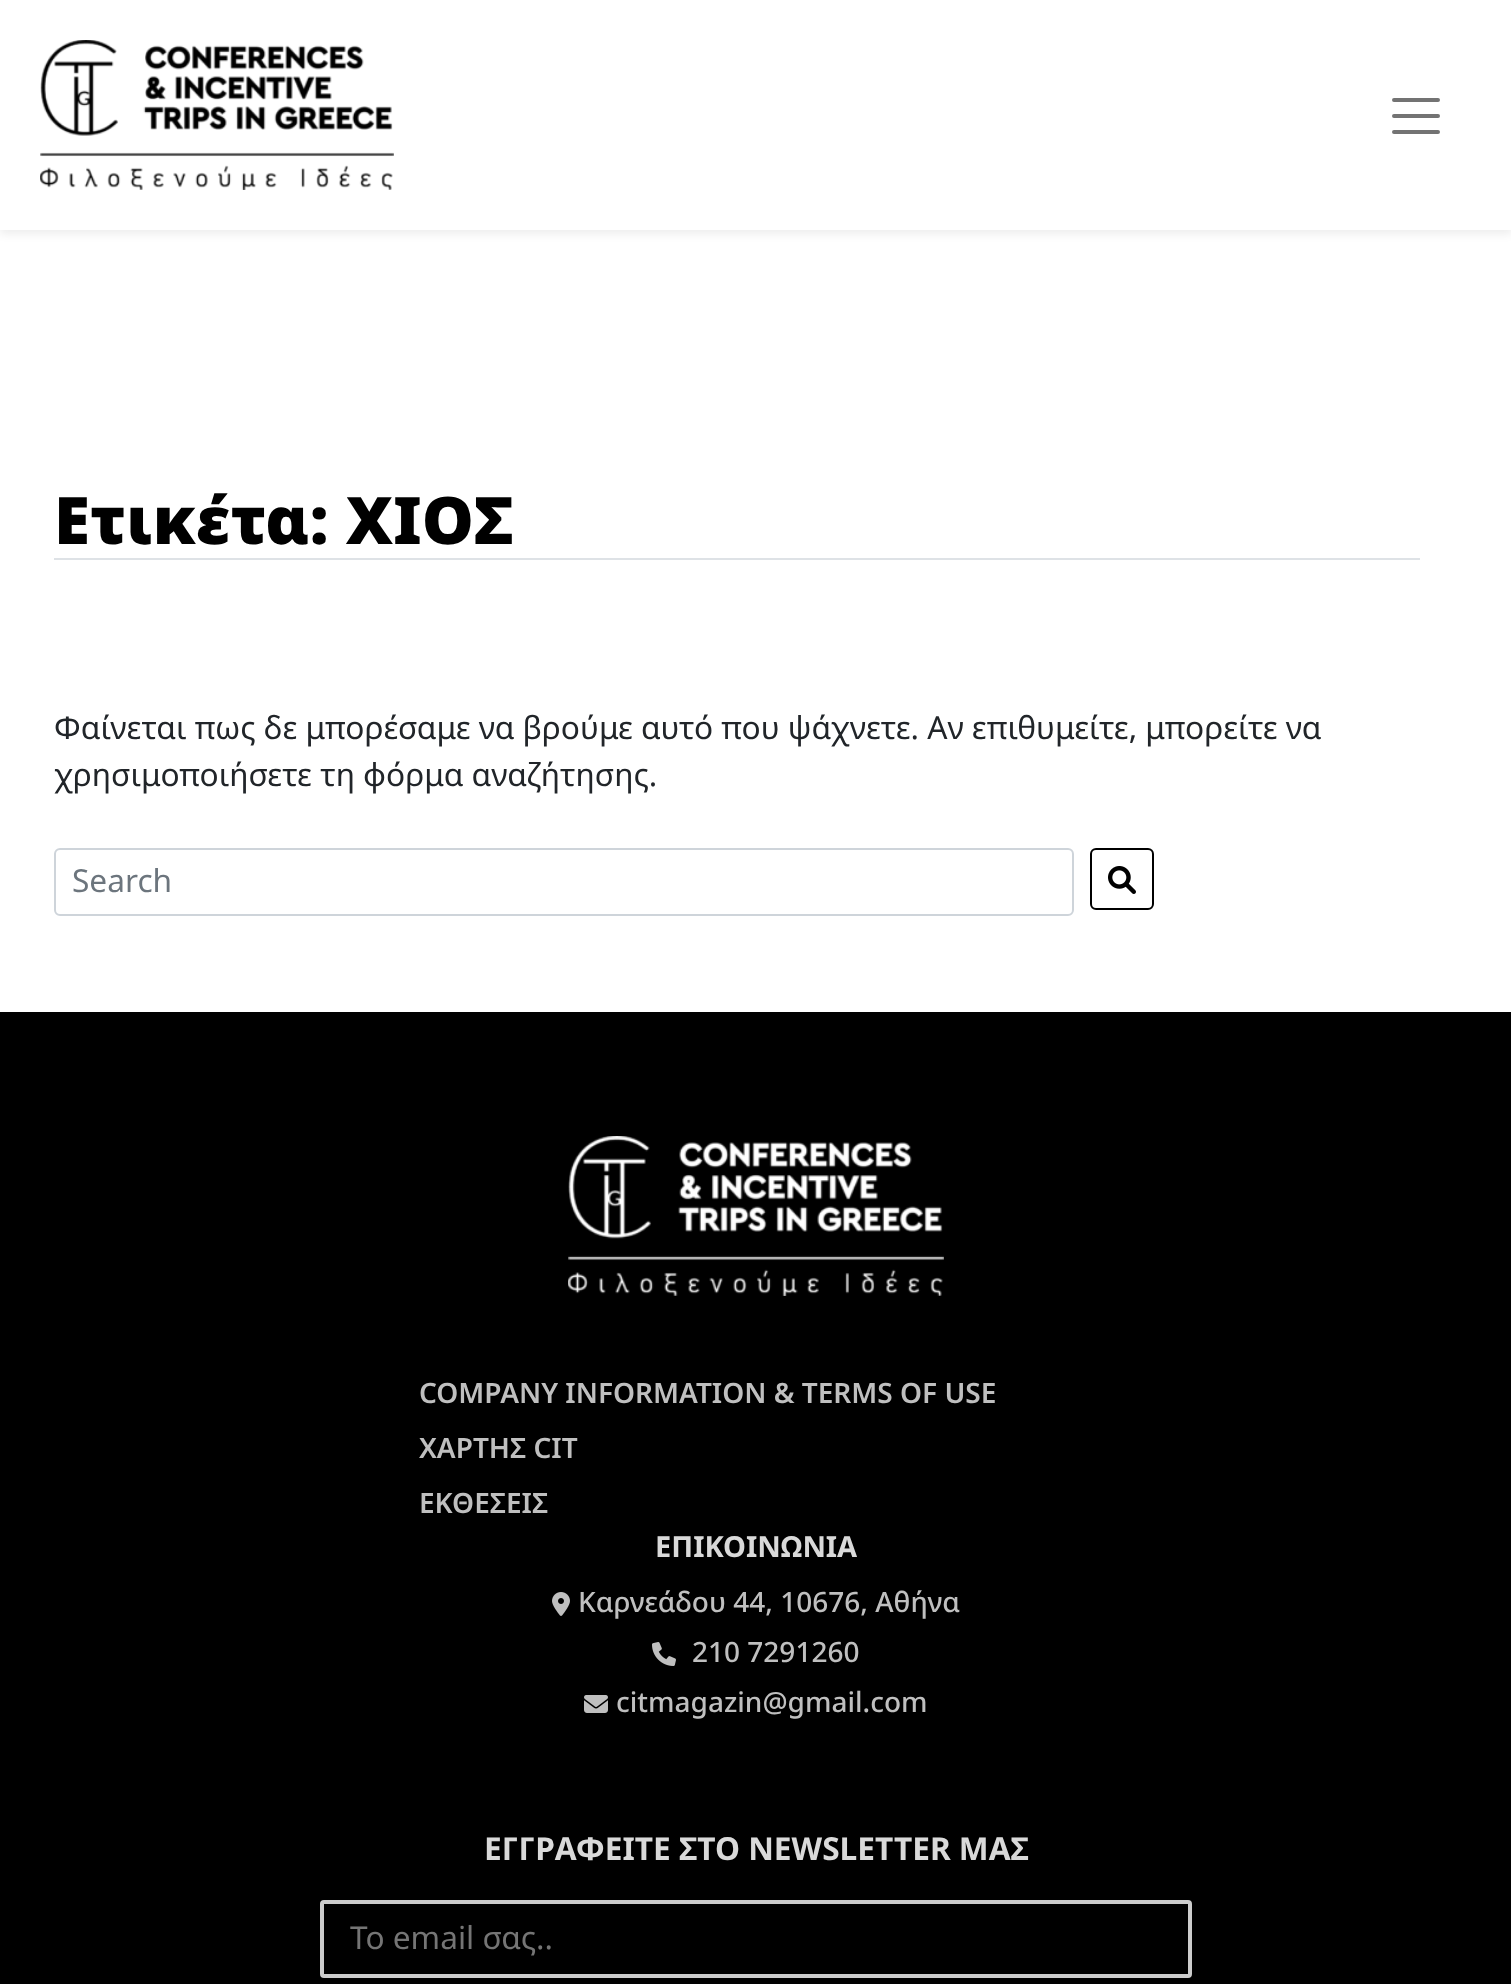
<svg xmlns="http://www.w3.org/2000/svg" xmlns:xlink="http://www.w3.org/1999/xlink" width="1511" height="1984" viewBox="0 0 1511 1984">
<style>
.cls-1{font:900 65.5px Noto Sans;fill:#000000}
.cls-2{font:31.65px Noto Sans;fill:#212529}
.cls-3{font:31.65px Noto Sans;fill:#6c757d}
.cls-4{font:600 28px Noto Sans;fill:#bfbfbf}
.cls-5{font:bold 29px Noto Sans;fill:#d9d9d9}
.cls-6{font:500 28px Noto Sans;fill:#bfbfbf}
.cls-7{font:bold 31.65px 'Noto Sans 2';fill:#d9d9d9}
.cls-8{font:31.65px Noto Sans;fill:#757575}
</style>
<rect width="100%" height="100%" fill="#ffffff"/>
<rect fill="#000000" fill-opacity="0.07" filter="blur(4px)" x="0" y="4" width="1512" height="230"/>
<rect fill="#ffffff" x="0" y="0" width="1511" height="230"/>
<image xlink:href="image0.png" x="40" y="40" width="354" height="150"/>
<path fill="none" stroke="#737373" stroke-width="4" stroke-linecap="round" d="M1394 100H1438M1394 116H1438M1394 132H1438"/>
<rect fill="#dee2e6" x="54" y="558" width="1366" height="2"/>
<rect fill="none" stroke="#ced4da" stroke-width="2" x="55" y="849" width="1018" height="66" rx="5"/>
<rect fill="none" stroke="#000000" stroke-width="2" x="1091" y="849" width="62" height="60" rx="5"/>
<image xlink:href="image1.png" x="1108" y="866" width="28" height="28"/>
<rect fill="#000000" x="0" y="1012" width="1511" height="972"/>
<image xlink:href="image2.png" x="568" y="1136" width="376" height="160"/>
<image xlink:href="image3.png" x="552" y="1592" width="18" height="24"/>
<image xlink:href="image4.png" x="652" y="1642" width="24" height="24"/>
<image xlink:href="image5.png" x="584" y="1695" width="24" height="18"/>
<rect fill="none" stroke="#cccccc" stroke-width="4" x="322" y="1902" width="868" height="74" rx="2"/>
<text class="cls-1" x="54" y="544">Ετικέτα: ΧΙΟΣ</text>
<text class="cls-2"><tspan x="54" y="739" word-spacing="-0.1">Φαίνεται πως δε μπορέσαμε να βρούμε αυτό που ψάχνετε. Αν επιθυμείτε, μπορείτε να</tspan><tspan x="54" y="786">χρησιμοποιήσετε τη φόρμα αναζήτησης.</tspan></text>
<text class="cls-3" x="72" y="892">Search</text>
<text class="cls-4"><tspan x="419" y="1403">COMPANY INFORMATION &amp; TERMS OF USE</tspan><tspan x="419" y="1458">ΧΑΡΤΗΣ CIT</tspan><tspan x="419" y="1513">ΕΚΘΕΣΕΙΣ</tspan></text>
<text class="cls-5" x="655" y="1557">ΕΠΙΚΟΙΝΩΝΙΑ</text>
<text class="cls-6" x="578" y="1612">Καρνεάδου 44, 10676, Αθήνα</text>
<text class="cls-6" x="692" y="1662">210 7291260</text>
<text class="cls-6" x="616" y="1712">citmagazin@gmail.com</text>
<text class="cls-7" x="484" y="1860">ΕΓΓΡΑΦΕΙΤΕ ΣΤΟ NEWSLETTER ΜΑΣ</text>
<text class="cls-8" x="350" y="1949">Το email σας..</text>
</svg>
